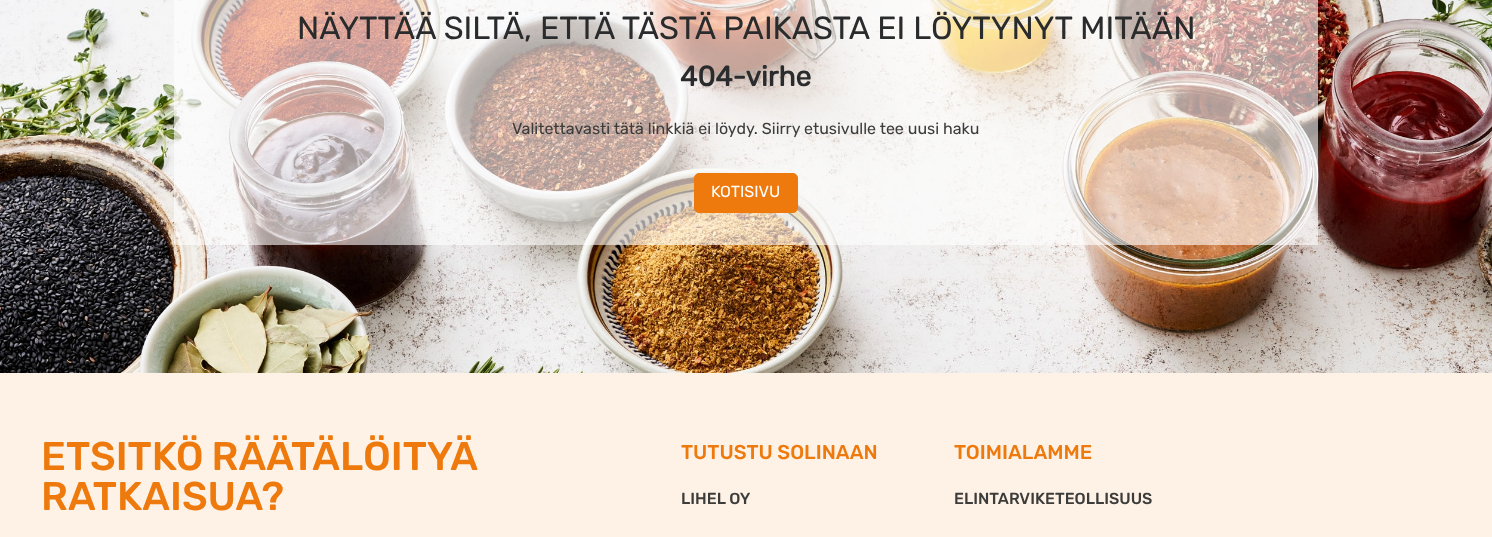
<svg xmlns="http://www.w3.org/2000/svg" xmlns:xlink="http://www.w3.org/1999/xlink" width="1492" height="537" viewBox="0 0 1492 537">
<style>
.cls-1{font:300 32px Rubik;fill:#292b2c}
.cls-2{font:bold 28px Rubik;fill:#292b2c}
.cls-3{font:300 16px Rubik;fill:#3c3c3b}
.cls-4{font:300 16px Rubik;fill:#ffffff}
.cls-5{font:500 40px Rubik;fill:#ee7a0d}
.cls-6{font:500 20px Rubik;fill:#ee7a0d}
.cls-7{font:500 16px Rubik;fill:#3c3c3b}
</style>
<rect width="100%" height="100%" fill="#ffffff"/>
<image xlink:href="image0.png" x="0" y="0" width="1492" height="373"/>
<rect fill="#ffffff" fill-opacity="0.6" x="174" y="0" width="1144" height="245"/>
<rect fill="#ee7a0d" stroke="#ee7a0d" x="694.5" y="173.5" width="103" height="39" rx="4.5"/>
<rect fill="#fef1e6" x="0" y="373" width="1492" height="164"/>
<text class="cls-1" x="297" y="39">NÄYTTÄÄ SILTÄ, ETTÄ TÄSTÄ PAIKASTA EI LÖYTYNYT MITÄÄN</text>
<text class="cls-2" x="680" y="86">404-virhe</text>
<text class="cls-3" x="512" y="134">Valitettavasti tätä linkkiä ei löydy. Siirry etusivulle tee uusi haku</text>
<text class="cls-4" x="711" y="197">KOTISIVU</text>
<text class="cls-5"><tspan x="41" y="470" word-spacing="-1">ETSITKÖ RÄÄTÄLÖITYÄ</tspan><tspan x="41" y="510">RATKAISUA?</tspan></text>
<text class="cls-6" x="681" y="459">TUTUSTU SOLINAAN</text>
<text class="cls-7" x="681" y="504">LIHEL OY</text>
<text class="cls-6" x="954" y="459">TOIMIALAMME</text>
<text class="cls-7" x="954" y="504">ELINTARVIKETEOLLISUUS</text>
</svg>
